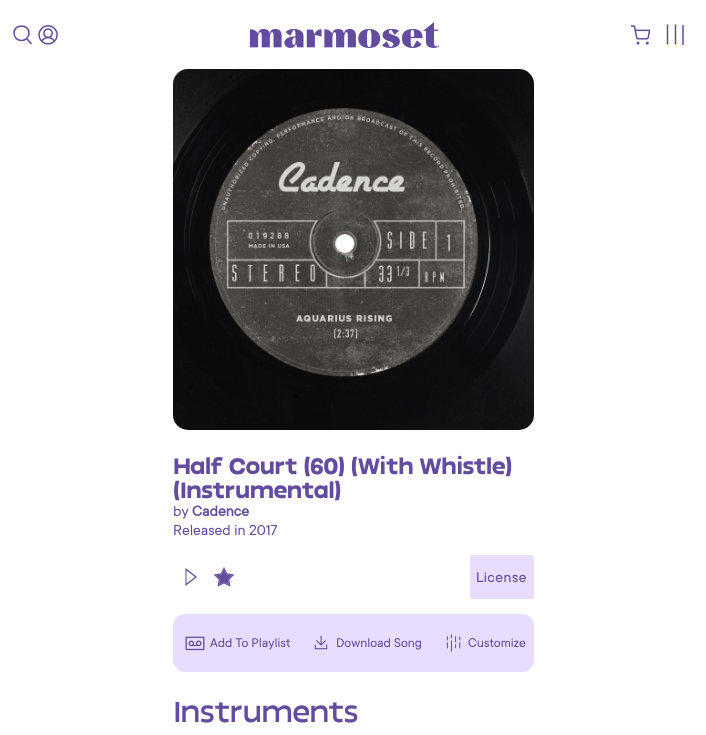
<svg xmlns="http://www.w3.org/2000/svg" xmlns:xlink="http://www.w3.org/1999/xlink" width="706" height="735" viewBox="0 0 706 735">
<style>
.cls-1{font:bold 20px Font;letter-spacing:-0.4px;fill:#634b9f}
.cls-2{font:16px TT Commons;fill:#634b9f}
.cls-3{font:bold 16px TT Commons;fill:#634b9f}
.cls-4{font:500 14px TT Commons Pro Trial;letter-spacing:0.5px;fill:#634b9f}
.cls-5{font:14px TT Commons;fill:#634b9f}
.cls-6{font:26px Font;letter-spacing:-0.5px;fill:#634b9f}
</style>
<rect width="100%" height="100%" fill="#ffffff"/>
<path fill="none" stroke="#634b9f" stroke-width="1.5" d="M26.5 38.5L31.5 44M29 33C29 43 14 43 14 33C14 23.5 29 23.5 29 33Z"/>
<image xlink:href="image0.png" x="38" y="25" width="20" height="20"/>
<image xlink:href="image1.png" x="250" y="22" width="190" height="26"/>
<image xlink:href="image2.png" x="631" y="25" width="19" height="20"/>
<path fill="none" stroke="#634b9f" stroke-width="1.5" d="M667.5 24.5V44.5M675.5 24.5V44.5"/>
<rect fill="#8a78b7" x="682" y="25" width="2" height="20"/>
<image xlink:href="image3.png" x="173" y="69" width="361" height="361"/>
<path fill="#634b9f" d="M186.5 570.5L195 577L186.5 583.5ZM185.5 586L197 577L185.5 568Z"/>
<image xlink:href="image4.png" x="213" y="567" width="22" height="20"/>
<rect fill="#e9ddff" x="470" y="555" width="64" height="44" rx="2"/>
<rect fill="#e9ddff" x="173" y="614" width="361" height="58" rx="12"/>
<image xlink:href="image5.png" x="185" y="636" width="20" height="15"/>
<image xlink:href="image6.png" x="314" y="635" width="14" height="15"/>
<image xlink:href="image7.png" x="446" y="634" width="15" height="18"/>
<text class="cls-1"><tspan x="173" y="474">Half Court (60) (With Whistle)</tspan><tspan x="173" y="498">(Instrumental)</tspan></text>
<text class="cls-2" x="173" y="516">by</text>
<text class="cls-3" x="192" y="516">Cadence</text>
<text class="cls-2" x="173" y="535">Released in 2017</text>
<text class="cls-4" x="476" y="582">License</text>
<text class="cls-5" x="210" y="647">Add To Playlist</text>
<text class="cls-5" x="336" y="647">Download Song</text>
<text class="cls-5" x="468" y="647">Customize</text>
<text class="cls-6" x="173" y="722">Instruments</text>
</svg>
